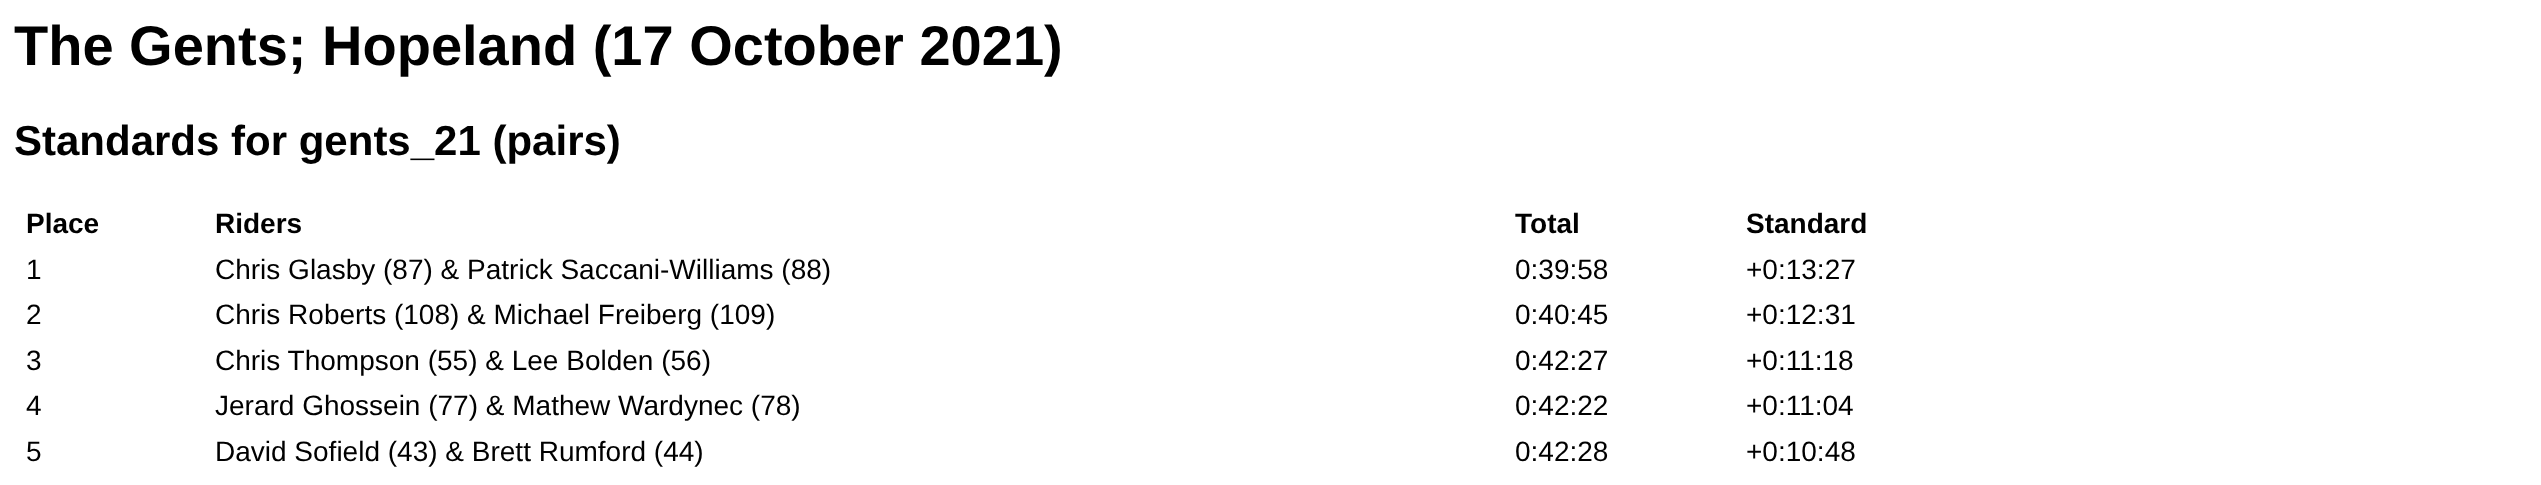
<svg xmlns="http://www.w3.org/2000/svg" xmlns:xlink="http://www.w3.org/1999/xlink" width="2541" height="485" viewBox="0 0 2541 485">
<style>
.cls-1{font:bold 56px Liberation Sans;fill:#000000}
.cls-2{font:bold 42px Liberation Sans;fill:#000000}
.cls-3{font:bold 28px Liberation Sans;fill:#000000}
.cls-4{font:28px Liberation Sans;fill:#000000}
</style>
<rect width="100%" height="100%" fill="#ffffff"/>
<text class="cls-1" x="14" y="65">The Gents; Hopeland (17 October 2021)</text>
<text class="cls-2" x="14" y="155">Standards for gents_21 (pairs)</text>
<text class="cls-3" x="26" y="233">Place</text>
<text class="cls-3" x="215" y="233">Riders</text>
<text class="cls-3" x="1515" y="233">Total</text>
<text class="cls-3" x="1746" y="233">Standard</text>
<text class="cls-4" x="26" y="279">1</text>
<text class="cls-4" x="215" y="279">Chris Glasby (87) &amp; Patrick Saccani-Williams (88)</text>
<text class="cls-4" x="1515" y="279">0:39:58</text>
<text class="cls-4" x="1746" y="279">+0:13:27</text>
<text class="cls-4" x="26" y="324">2</text>
<text class="cls-4" x="215" y="324">Chris Roberts (108) &amp; Michael Freiberg (109)</text>
<text class="cls-4" x="1515" y="324">0:40:45</text>
<text class="cls-4" x="1746" y="324">+0:12:31</text>
<text class="cls-4" x="26" y="370">3</text>
<text class="cls-4" x="215" y="370">Chris Thompson (55) &amp; Lee Bolden (56)</text>
<text class="cls-4" x="1515" y="370">0:42:27</text>
<text class="cls-4" x="1746" y="370">+0:11:18</text>
<text class="cls-4" x="26" y="415">4</text>
<text class="cls-4" x="215" y="415">Jerard Ghossein (77) &amp; Mathew Wardynec (78)</text>
<text class="cls-4" x="1515" y="415">0:42:22</text>
<text class="cls-4" x="1746" y="415">+0:11:04</text>
<text class="cls-4" x="26" y="461">5</text>
<text class="cls-4" x="215" y="461">David Sofield (43) &amp; Brett Rumford (44)</text>
<text class="cls-4" x="1515" y="461">0:42:28</text>
<text class="cls-4" x="1746" y="461">+0:10:48</text>
</svg>
